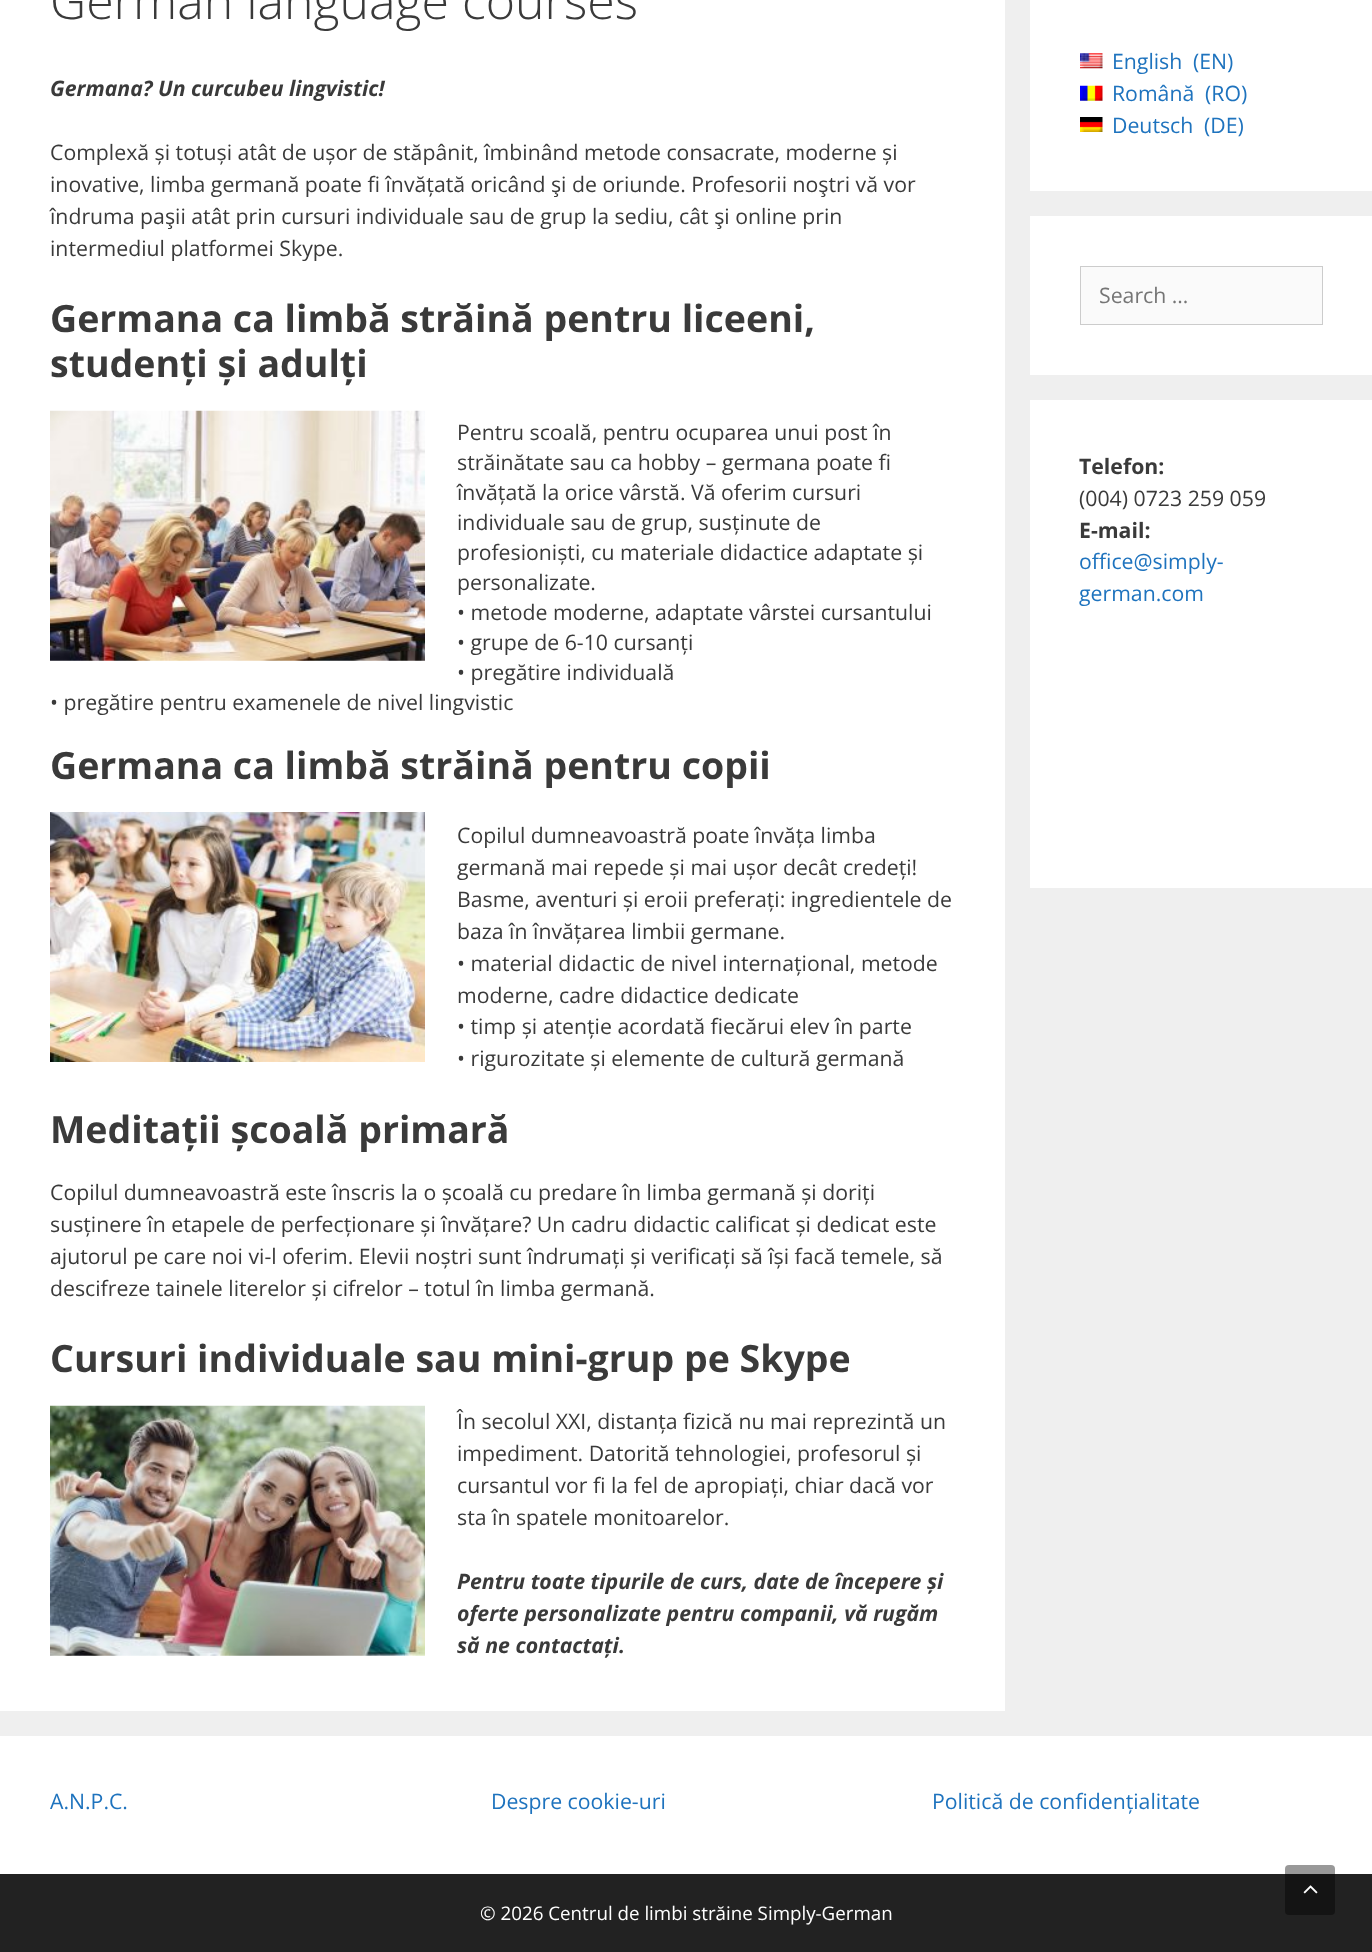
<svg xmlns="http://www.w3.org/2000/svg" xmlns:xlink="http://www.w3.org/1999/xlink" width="1372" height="1952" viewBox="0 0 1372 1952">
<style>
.cls-1{font:300 50px Open Sans;fill:#3a3a3a}
.cls-2{font:italic bold 21.25px Open Sans;fill:#3a3a3a}
.cls-3{font:21.25px Open Sans;fill:#3a3a3a}
.cls-4{font:bold 37.5px Open Sans;fill:#3a3a3a}
.cls-5{font:21.25px Open Sans;fill:#1e73be}
.cls-6{font:21.25px Open Sans;fill:#757575}
.cls-7{font:bold 21.25px Open Sans;fill:#3a3a3a}
.cls-8{font:18.75px Open Sans;fill:#ffffff}
</style>
<rect width="100%" height="100%" fill="#efefef"/>
<rect fill="#ffffff" x="0" y="0" width="1005" height="1711"/>
<image xlink:href="image0.png" x="50" y="410" width="375" height="251"/>
<image xlink:href="image1.png" x="50" y="812" width="375" height="250"/>
<image xlink:href="image2.png" x="50" y="1405" width="375" height="251"/>
<rect fill="#ffffff" x="1030" y="0" width="342" height="191"/>
<image xlink:href="image3.png" x="1080" y="53" width="23" height="16"/>
<image xlink:href="image4.png" x="1080" y="85" width="23" height="16"/>
<image xlink:href="image5.png" x="1080" y="117" width="23" height="15"/>
<rect fill="#ffffff" x="1030" y="216" width="342" height="159"/>
<rect fill="#fafafa" stroke="#cccccc" x="1080.5" y="266.5" width="242" height="58"/>
<rect fill="#ffffff" x="1030" y="400" width="342" height="488"/>
<rect fill="#ffffff" x="0" y="1736" width="1372" height="138"/>
<rect fill="#222222" x="0" y="1874" width="1372" height="78"/>
<rect fill="#000000" fill-opacity="0.4" x="1285" y="1865" width="50" height="50" rx="4"/>
<image xlink:href="image6.png" x="1303" y="1885" width="15" height="9"/>
<text class="cls-1" x="50" y="19">German language courses</text>
<text class="cls-2" x="50" y="96">Germana? Un curcubeu lingvistic!</text>
<text class="cls-3"><tspan x="50" y="160">Complexă și totuși atât de ușor de stăpânit, îmbinând metode consacrate, moderne și</tspan><tspan x="50" y="192">inovative, limba germană poate fi învățată oricând şi de oriunde. Profesorii noştri vă vor</tspan><tspan x="50" y="224">îndruma paşii atât prin cursuri individuale sau de grup la sediu, cât şi online prin</tspan><tspan x="50" y="256">intermediul platformei Skype.</tspan></text>
<text class="cls-4"><tspan x="50" y="332">Germana ca limbă străină pentru liceeni,</tspan><tspan x="50" y="377">studenți și adulți</tspan></text>
<text class="cls-3"><tspan x="457" y="440">Pentru scoală, pentru ocuparea unui post în</tspan><tspan x="457" y="470">străinătate sau ca hobby – germana poate fi</tspan><tspan x="457" y="500">învățată la orice vârstă. Vă oferim cursuri</tspan><tspan x="457" y="530">individuale sau de grup, susținute de</tspan><tspan x="457" y="560">profesioniști, cu materiale didactice adaptate și</tspan><tspan x="457" y="590">personalizate.</tspan><tspan x="457" y="620">• metode moderne, adaptate vârstei cursantului</tspan><tspan x="457" y="650">• grupe de 6-10 cursanți</tspan><tspan x="457" y="680">• pregătire individuală</tspan></text>
<text class="cls-3" x="50" y="710">• pregătire pentru examenele de nivel lingvistic</text>
<text class="cls-4" x="50" y="779">Germana ca limbă străină pentru copii</text>
<text class="cls-3"><tspan x="457" y="843">Copilul dumneavoastră poate învăța limba</tspan><tspan x="457" y="875">germană mai repede și mai ușor decât credeți!</tspan><tspan x="457" y="907">Basme, aventuri și eroii preferați: ingredientele de</tspan><tspan x="457" y="939">baza în învățarea limbii germane.</tspan><tspan x="457" y="971">• material didactic de nivel internațional, metode</tspan><tspan x="457" y="1003">moderne, cadre didactice dedicate</tspan><tspan x="457" y="1034">• timp și atenție acordată fiecărui elev în parte</tspan><tspan x="457" y="1066">• rigurozitate și elemente de cultură germană</tspan></text>
<text class="cls-4" x="50" y="1143">Meditații școală primară</text>
<text class="cls-3"><tspan x="50" y="1200">Copilul dumneavoastră este înscris la o școală cu predare în limba germană și doriți</tspan><tspan x="50" y="1232">susținere în etapele de perfecționare și învățare? Un cadru didactic calificat și dedicat este</tspan><tspan x="50" y="1264">ajutorul pe care noi vi-l oferim. Elevii noștri sunt îndrumați și verificați să își facă temele, să</tspan><tspan x="50" y="1296">descifreze tainele literelor și cifrelor – totul în limba germană.</tspan></text>
<text class="cls-4" x="50" y="1372">Cursuri individuale sau mini-grup pe Skype</text>
<text class="cls-3"><tspan x="457" y="1429">În secolul XXI, distanța fizică nu mai reprezintă un</tspan><tspan x="457" y="1461">impediment. Datorită tehnologiei, profesorul și</tspan><tspan x="457" y="1493">cursantul vor fi la fel de apropiați, chiar dacă vor</tspan><tspan x="457" y="1525">sta în spatele monitoarelor.</tspan></text>
<text class="cls-2"><tspan x="457" y="1589">Pentru toate tipurile de curs, date de începere și</tspan><tspan x="457" y="1621">oferte personalizate pentru companii, vă rugăm</tspan><tspan x="457" y="1653">să ne contactați.</tspan></text>
<text class="cls-5" x="1112" y="69">English</text>
<text class="cls-5" x="1193" y="69">(EN)</text>
<text class="cls-5" x="1112" y="101">Română</text>
<text class="cls-5" x="1205" y="101">(RO)</text>
<text class="cls-5" x="1112" y="133">Deutsch</text>
<text class="cls-5" x="1204" y="133">(DE)</text>
<text class="cls-6" x="1099" y="303">Search …</text>
<text class="cls-7" x="1079" y="474">Telefon:</text>
<text class="cls-3" x="1079" y="506">(004) 0723 259 059</text>
<text class="cls-7" x="1079" y="538">E-mail:</text>
<text class="cls-5"><tspan x="1079" y="569">office@simply-</tspan><tspan x="1079" y="601">german.com</tspan></text>
<text class="cls-5" x="50" y="1809">A.N.P.C.</text>
<text class="cls-5" x="491" y="1809">Despre cookie-uri</text>
<text class="cls-5" x="932" y="1809">Politică de confidențialitate</text>
<text class="cls-8" x="480" y="1920">© 2026 Centrul de limbi străine Simply-German</text>
</svg>
